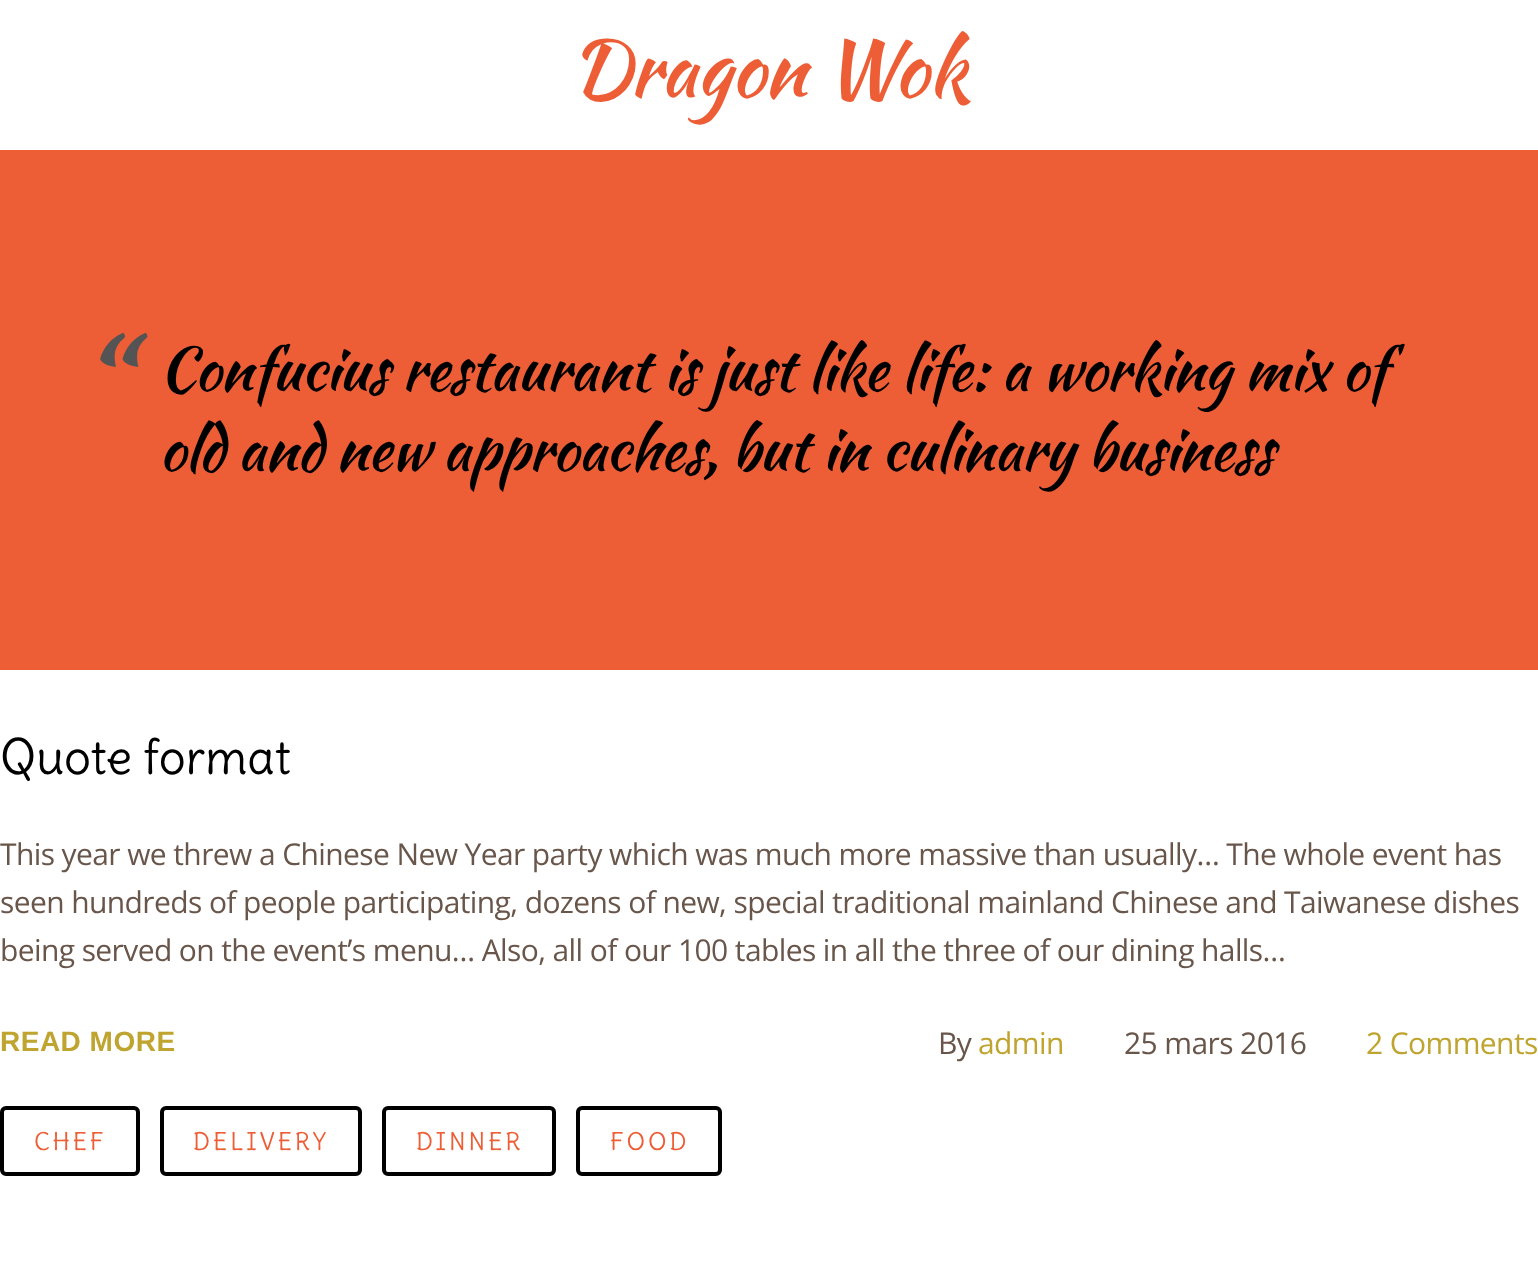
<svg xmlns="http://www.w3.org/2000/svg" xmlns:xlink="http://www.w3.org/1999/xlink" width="1538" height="1284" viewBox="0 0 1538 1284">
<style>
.cls-1{font:78px Kaushan Script;letter-spacing:-0.6px;fill:#ed5e36}
.cls-2{font:112px Kaushan Script;letter-spacing:-0.6px;fill:#545454}
.cls-3{font:60px Kaushan Script;letter-spacing:-0.6px;fill:#000000}
.cls-4{font:48px Delius;fill:#000000}
.cls-5{font:30px Open Sans;letter-spacing:-0.6px;fill:#69564b}
.cls-6{font:bold 28px Liberation Sans;letter-spacing:0.5px;fill:#bfa42f}
.cls-7{font:30px Open Sans;letter-spacing:-0.6px;fill:#bfa42f}
.cls-8{font:24px Delius;letter-spacing:3px;fill:#ed5e36}
</style>
<rect width="100%" height="100%" fill="#ffffff"/>
<rect fill="#ed5e36" x="0" y="150" width="1538" height="520"/>
<rect fill="none" stroke="#000000" stroke-width="4" x="2" y="1108" width="136" height="66" rx="4"/>
<rect fill="none" stroke="#000000" stroke-width="4" x="162" y="1108" width="198" height="66" rx="4"/>
<rect fill="none" stroke="#000000" stroke-width="4" x="384" y="1108" width="170" height="66" rx="4"/>
<rect fill="none" stroke="#000000" stroke-width="4" x="578" y="1108" width="142" height="66" rx="4"/>
<text class="cls-1" x="570" y="96">Dragon Wok</text>
<text class="cls-2" x="75" y="426">“</text>
<text class="cls-3"><tspan x="159" y="390">Confucius restaurant is just like life: a working mix of</tspan><tspan x="159" y="470">old and new approaches, but in culinary business</tspan></text>
<text class="cls-4" x="0" y="774">Quote format</text>
<text class="cls-5"><tspan x="0" y="865">This year we threw a Chinese New Year party which was much more massive than usually… The whole event has</tspan><tspan x="0" y="913">seen hundreds of people participating, dozens of new, special traditional mainland Chinese and Taiwanese dishes</tspan><tspan x="0" y="961">being served on the event’s menu… Also, all of our 100 tables in all the three of our dining halls…</tspan></text>
<text class="cls-6" x="0" y="1051">READ MORE</text>
<text class="cls-5" x="938" y="1054">By</text>
<text class="cls-7" x="978" y="1054">admin</text>
<text class="cls-5" x="1124" y="1054">25 mars 2016</text>
<text class="cls-7" x="1366" y="1054">2 Comments</text>
<text class="cls-8" x="34" y="1150">CHEF</text>
<text class="cls-8" x="193" y="1150">DELIVERY</text>
<text class="cls-8" x="416" y="1150">DINNER</text>
<text class="cls-8" x="610" y="1150">FOOD</text>
</svg>
